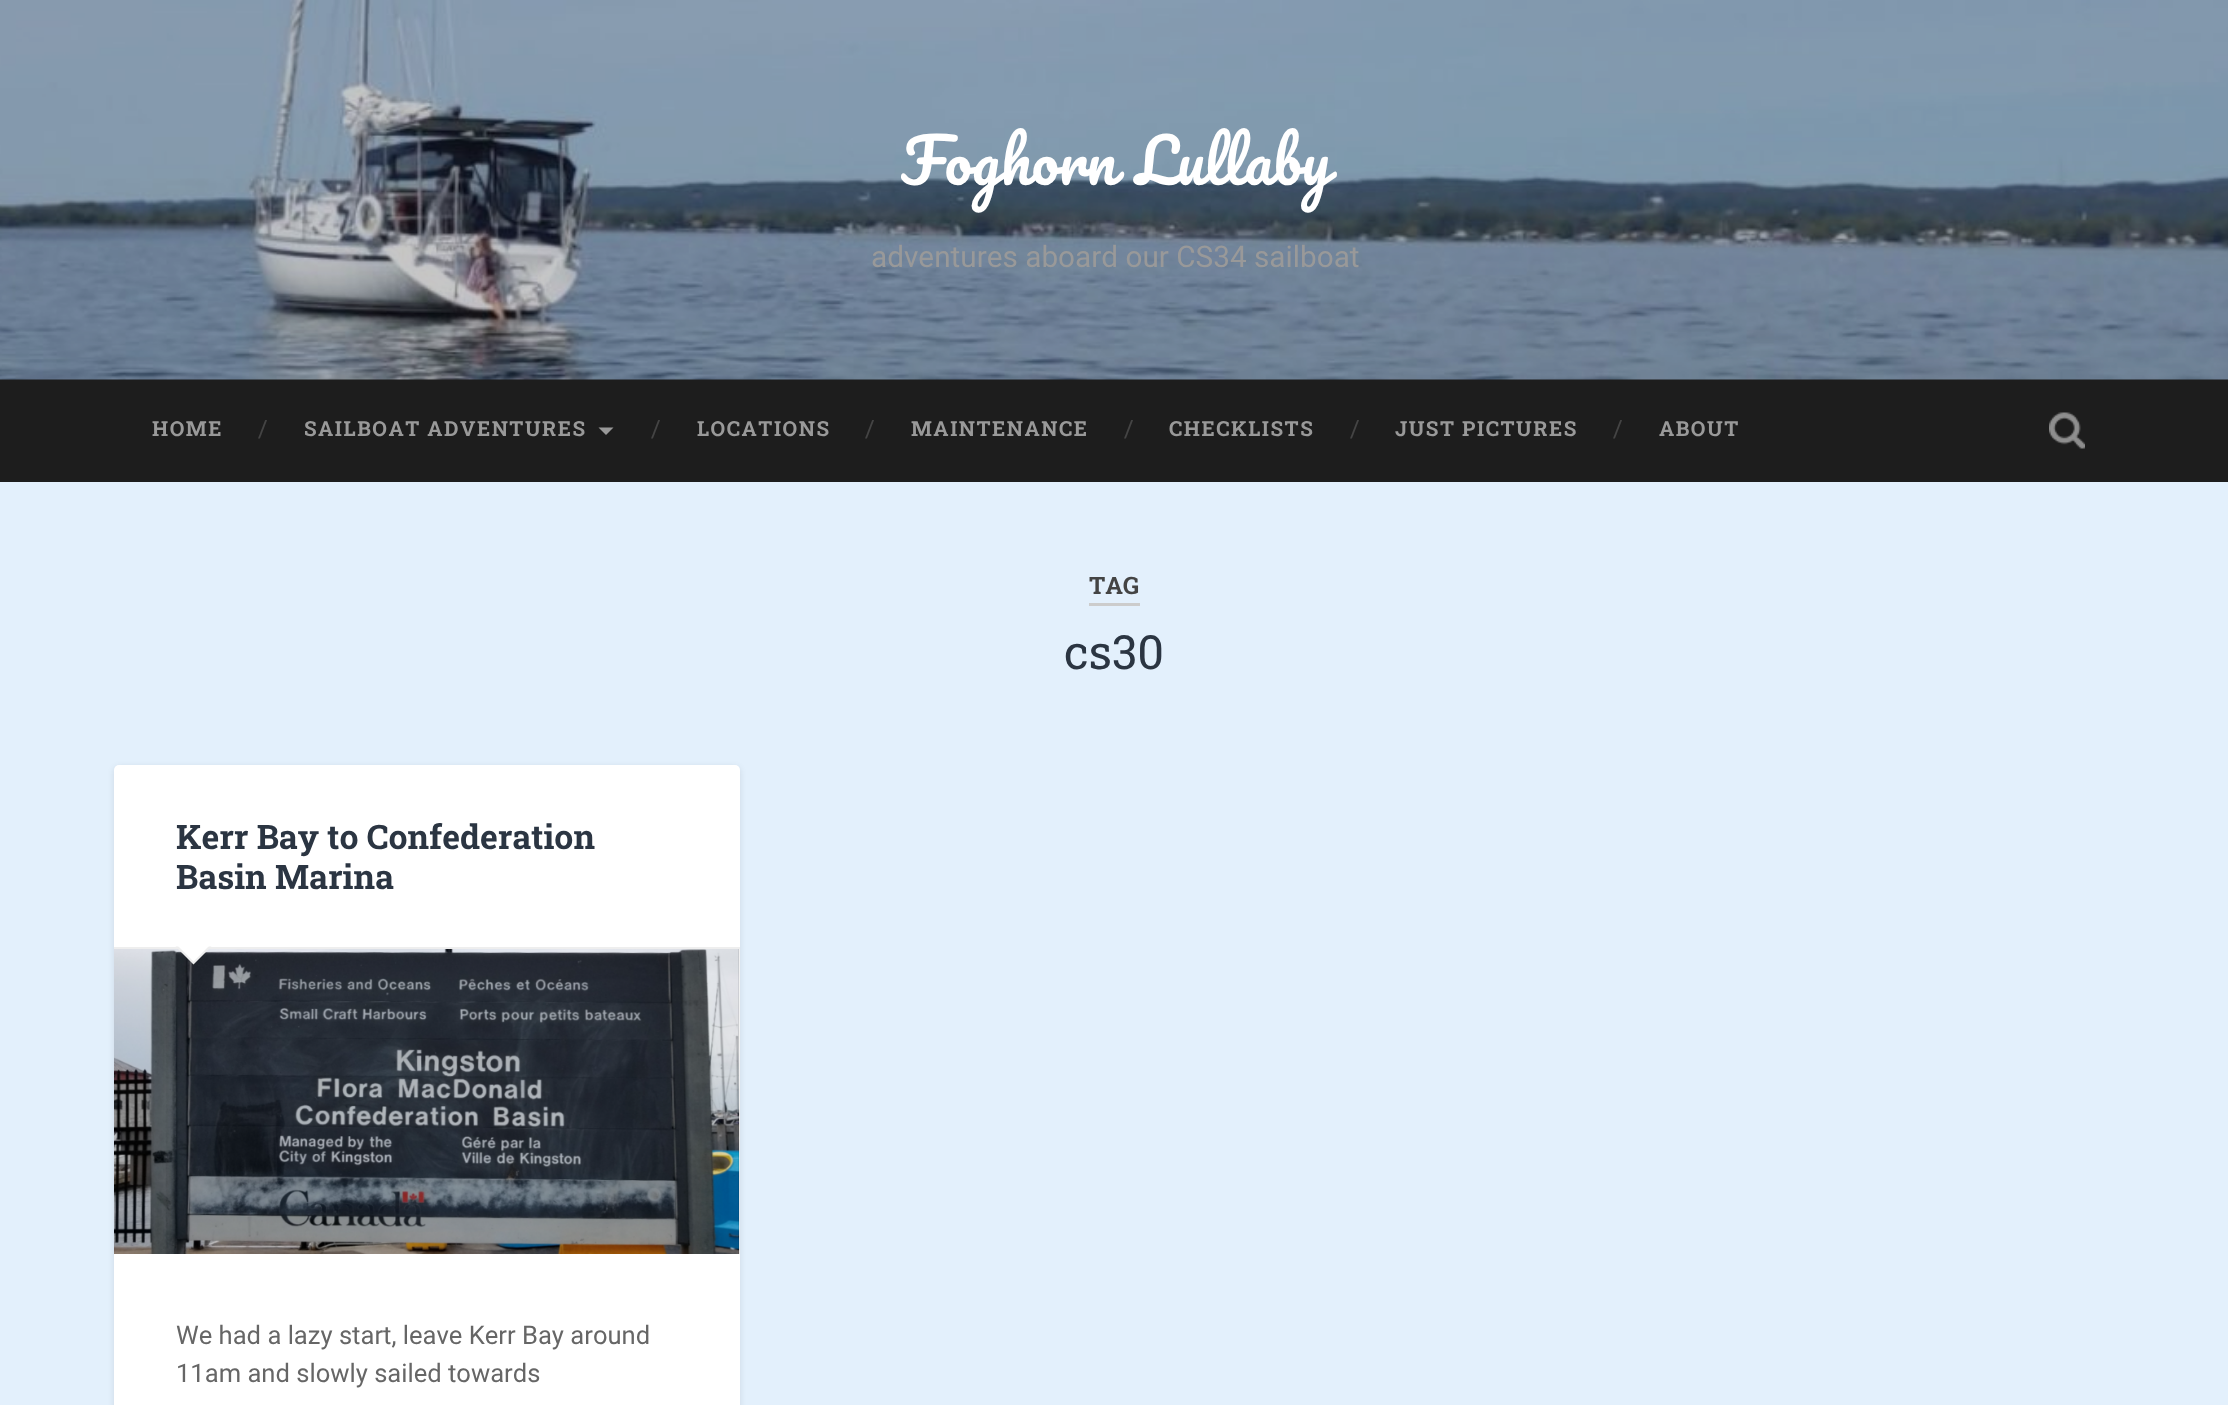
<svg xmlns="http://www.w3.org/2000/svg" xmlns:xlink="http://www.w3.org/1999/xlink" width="2228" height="1405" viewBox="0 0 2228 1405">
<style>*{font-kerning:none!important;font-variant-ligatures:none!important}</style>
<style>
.cls-1{font:60.75px Pacifico;fill:#ffffff}
.cls-2{font:29.75px Roboto;fill:#999999}
.cls-3{font:bold 20.7px Roboto Slab;letter-spacing:1.5px;fill:#999999}
.cls-4{font:24px Roboto Slab;fill:#444444}
.cls-5{font:bold 24px Roboto Slab;fill:#444444}
.cls-6{font:47px Roboto Slab;fill:#2b3542}
.cls-7{font:bold 33.75px Roboto Slab;fill:#2b3542}
.cls-8{font:25.6px Roboto;fill:#666666}
</style>
<rect width="100%" height="100%" fill="#e3f0fc"/>
<rect fill="#1d1d1d" x="0" y="379" width="2228" height="103"/>
<image xlink:href="image0.png" x="0" y="0" width="2228" height="380"/>
<path fill="#999999" d="M598.5 427.5H613.5L606 435Z"/>
<image xlink:href="image1.png" x="2049" y="412" width="36" height="37"/>
<rect fill="#cccccc" x="1089" y="603" width="51" height="3"/>
<rect fill="#000000" fill-opacity="0.1" filter="blur(3px)" x="114" y="767" width="626" height="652" rx="5"/>
<rect fill="#ffffff" x="114" y="765" width="626" height="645" rx="5"/>
<rect fill="#eeeeee" x="114" y="947" width="626" height="2"/>
<image xlink:href="image2.png" x="114" y="949" width="626" height="305"/>
<path fill="#eeeeee" d="M175.5 946.5H211.5L193.5 964.5Z"/>
<path fill="#ffffff" d="M177 945H210L193.5 961.5Z"/>
<text class="cls-1" x="901" y="185" word-spacing="3">Foghorn Lullaby</text>
<text class="cls-2" x="871" y="267">adventures aboard our CS34 sailboat</text>
<text class="cls-3" x="152" y="436">HOME</text>
<text class="cls-4" x="258" y="437">/</text>
<text class="cls-3" x="304" y="436">SAILBOAT ADVENTURES</text>
<text class="cls-4" x="651" y="437">/</text>
<text class="cls-3" x="697" y="436">LOCATIONS</text>
<text class="cls-4" x="865" y="437">/</text>
<text class="cls-3" x="911" y="436">MAINTENANCE</text>
<text class="cls-4" x="1124" y="437">/</text>
<text class="cls-3" x="1169" y="436">CHECKLISTS</text>
<text class="cls-4" x="1350" y="437">/</text>
<text class="cls-3" x="1395" y="436">JUST PICTURES</text>
<text class="cls-4" x="1613" y="437">/</text>
<text class="cls-3" x="1659" y="436">ABOUT</text>
<text class="cls-5" x="1089" y="594">TAG</text>
<text class="cls-6" x="1064" y="669">cs30</text>
<text class="cls-7"><tspan x="176" y="849">Kerr Bay to Confederation</tspan><tspan x="176" y="889">Basin Marina</tspan></text>
<text class="cls-8"><tspan x="176" y="1344">We had a lazy start, leave Kerr Bay around</tspan><tspan x="176" y="1382">11am and slowly sailed towards</tspan></text>
</svg>
